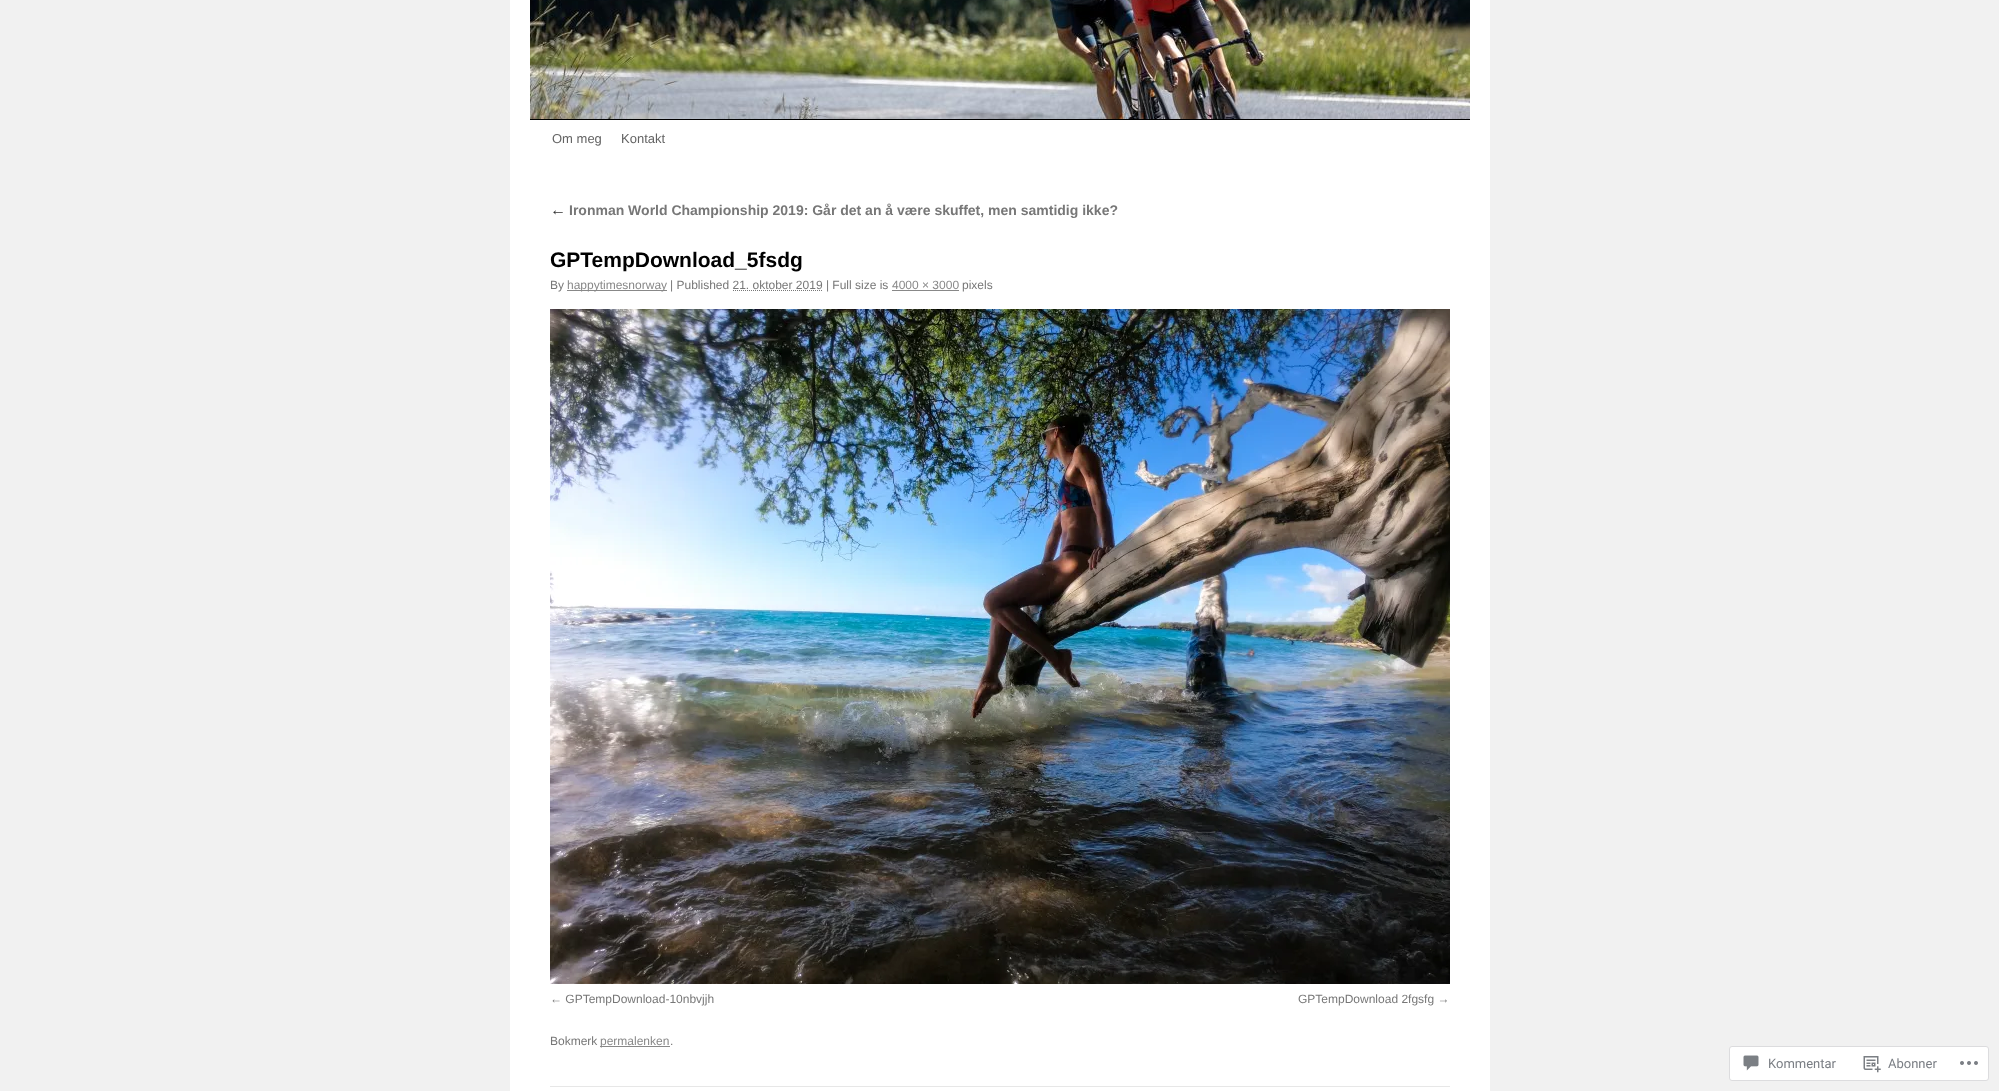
<svg xmlns="http://www.w3.org/2000/svg" xmlns:xlink="http://www.w3.org/1999/xlink" width="1999" height="1091" viewBox="0 0 1999 1091">
<style>
.cls-1{font:13px Liberation Sans;fill:#636363}
.cls-2{font:italic 16px Liberation Serif;fill:#333333}
.cls-3{font:bold 14px Liberation Sans;fill:#777777}
.cls-4{font:bold 21px Liberation Sans;fill:#000000}
.cls-5{font:12px Liberation Sans;fill:#777777}
.cls-6{font:12px Liberation Sans;fill:#888888}
.cls-7{font:13px Roboto;fill:#7a7e84}
</style>
<rect width="100%" height="100%" fill="#f1f1f1"/>
<rect fill="#ffffff" x="510" y="0" width="980" height="1091"/>
<rect fill="#000000" x="530" y="119" width="940" height="1"/>
<image xlink:href="image0.png" x="530" y="0" width="940" height="119"/>
<rect fill="#888888" x="567" y="290" width="100" height="1"/>
<rect fill="#888888" x="892" y="290" width="67" height="1"/>
<path fill="none" stroke="#777777" stroke-dasharray="1 1" d="M733 290.5H823"/>
<image xlink:href="image1.png" x="550" y="309" width="900" height="675"/>
<rect fill="#888888" x="600" y="1046" width="70" height="1"/>
<rect fill="#e7e7e7" x="550" y="1086" width="900" height="1"/>
<rect fill="#ffffff" stroke="#dcdcde" x="1729.5" y="1046.5" width="259" height="34" rx="2.5"/>
<image xlink:href="image2.png" x="1743" y="1055" width="16" height="16"/>
<image xlink:href="image3.png" x="1863" y="1056" width="18" height="17"/>
<image xlink:href="image4.png" x="1960" y="1061" width="18" height="4"/>
<text class="cls-1" x="552" y="143">Om meg</text>
<text class="cls-1" x="621" y="143">Kontakt</text>
<text class="cls-2" x="550" y="215">←</text>
<text class="cls-3" x="569" y="215">Ironman World Championship 2019: Går det an å være skuffet, men samtidig ikke?</text>
<text class="cls-4" x="550" y="267">GPTempDownload_5fsdg</text>
<text class="cls-5" x="550" y="289">By</text>
<text class="cls-6" x="567" y="289">happytimesnorway</text>
<text class="cls-5" x="670" y="289">| Published 21. oktober 2019 | Full size is</text>
<text class="cls-6" x="892" y="289">4000 × 3000</text>
<text class="cls-5" x="962" y="289">pixels</text>
<text class="cls-5" x="550" y="1003">← GPTempDownload-10nbvjjh</text>
<text class="cls-5" x="1298" y="1003">GPTempDownload 2fgsfg →</text>
<text class="cls-5" x="550" y="1045">Bokmerk</text>
<text class="cls-6" x="600" y="1045">permalenken</text>
<text class="cls-5" x="670" y="1045">.</text>
<text class="cls-7" x="1768" y="1068">Kommentar</text>
<text class="cls-7" x="1888" y="1068">Abonner</text>
</svg>
